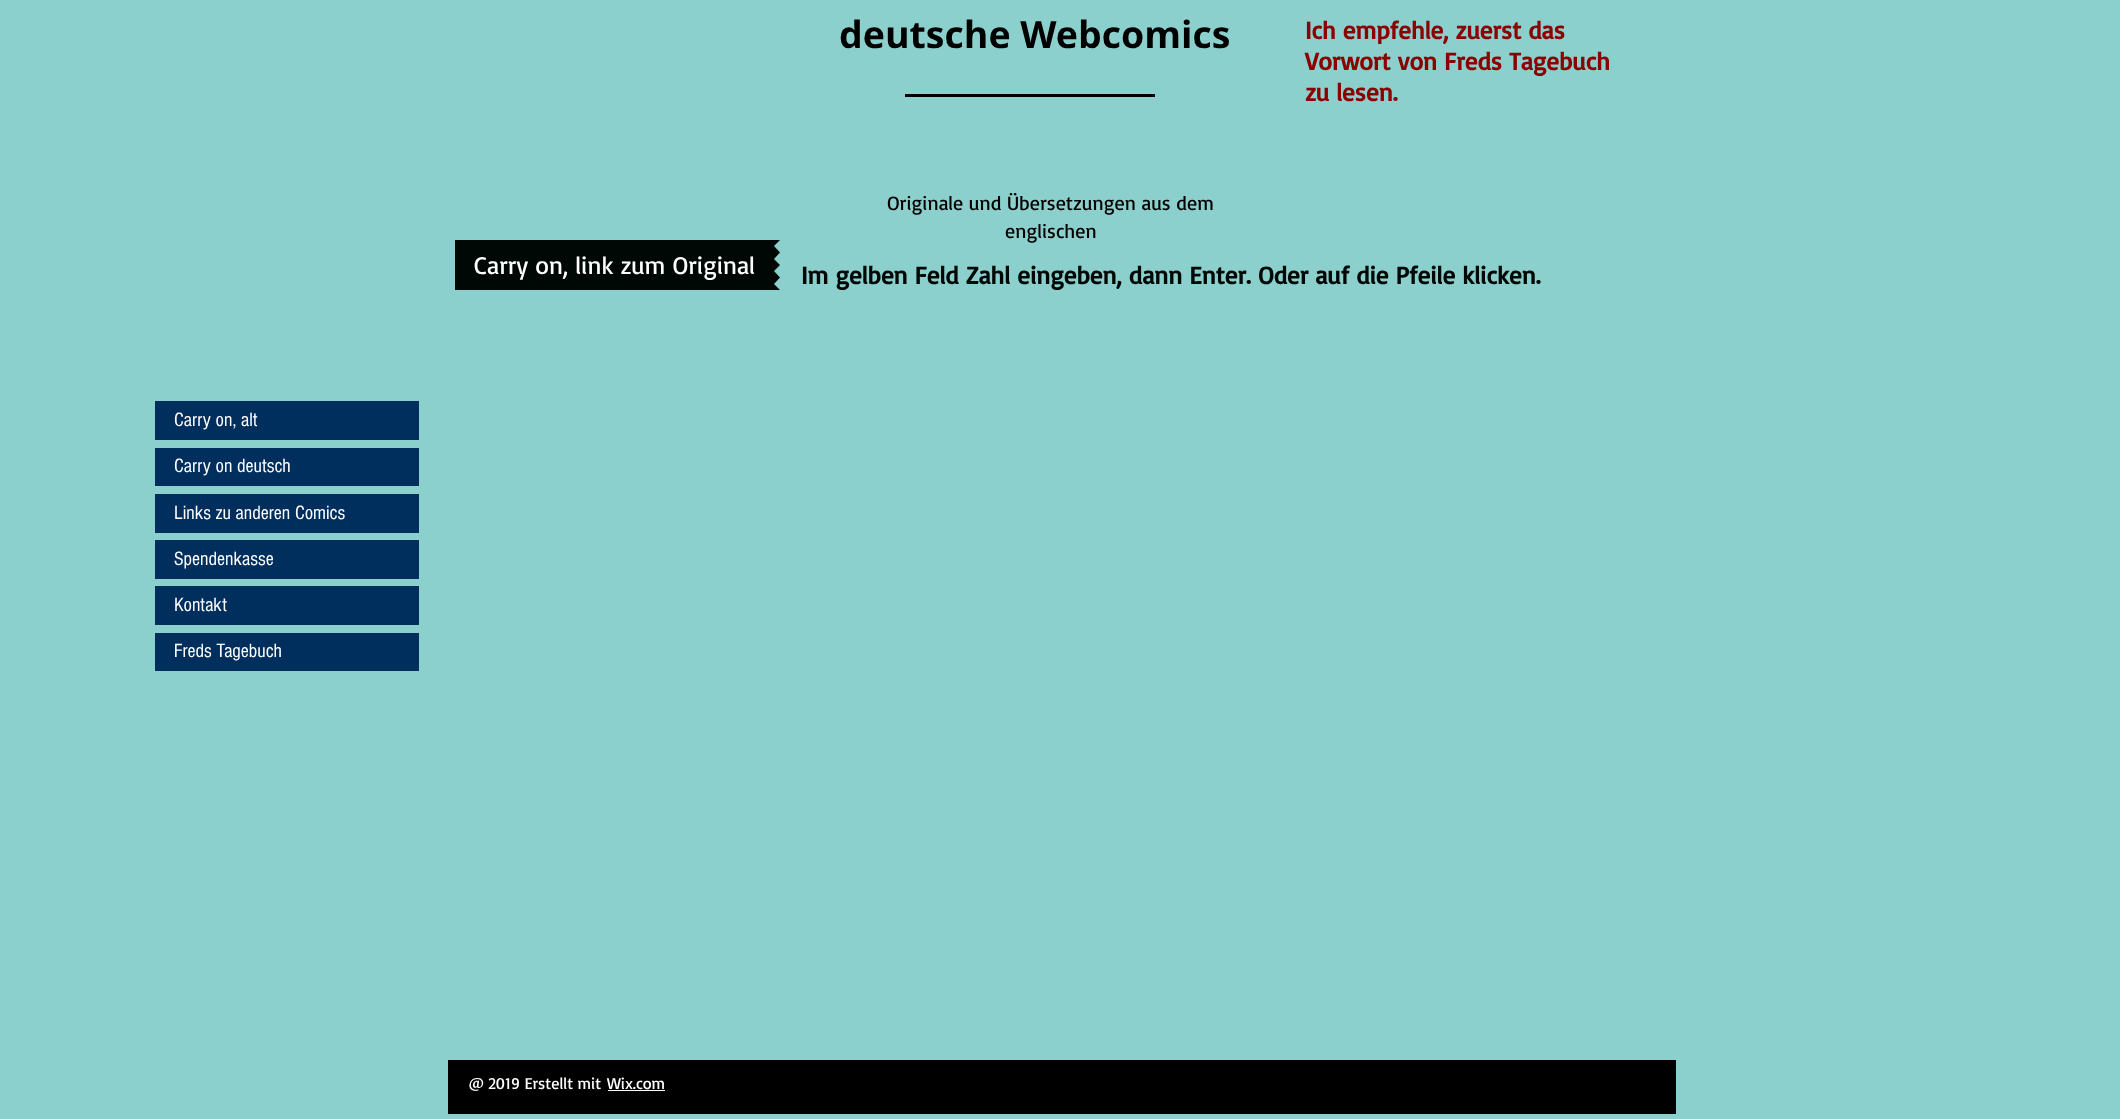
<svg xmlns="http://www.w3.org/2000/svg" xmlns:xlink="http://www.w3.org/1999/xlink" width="2120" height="1119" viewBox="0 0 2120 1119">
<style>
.cls-1{font:bold 37.5px Open Sans;fill:#000000}
.cls-2{font:bold 25px Basic;fill:#8b0000}
.cls-3{font:20px Basic;fill:#000000}
.cls-4{font:25px Basic;fill:#ffffff}
.cls-5{font:bold 25px Basic;fill:#000806}
.cls-6{font:20px 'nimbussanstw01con';fill:#ffffff}
.cls-7{font:16.25px Basic;fill:#ffffff}
</style>
<defs>
<clipPath id="clip1"><rect x="774" y="240" width="6" height="50"/></clipPath>
</defs>
<rect width="100%" height="100%" fill="#8bd0cd"/>
<rect fill="#000000" x="905" y="94" width="250" height="3"/>
<rect fill="#000806" x="455" y="240" width="319" height="50"/>
<g clip-path="url(#clip1)">
<path fill="#000806" d="M774 246V234L780 240Z"/>
</g>
<path fill="#000806" d="M774 259V246L780 252.5ZM774 271V259L780 265ZM774 284V271L780 277.5Z"/>
<g clip-path="url(#clip1)">
<path fill="#000806" d="M774 296V284L780 290Z"/>
</g>
<rect fill="#002e5d" x="155" y="401" width="264" height="39"/>
<rect fill="#002e5d" x="155" y="448" width="264" height="38"/>
<rect fill="#002e5d" x="155" y="494" width="264" height="39"/>
<rect fill="#002e5d" x="155" y="540" width="264" height="39"/>
<rect fill="#002e5d" x="155" y="586" width="264" height="39"/>
<rect fill="#002e5d" x="155" y="633" width="264" height="38"/>
<rect fill="#000000" x="448" y="1060" width="1228" height="54"/>
<rect fill="#fefdfd" x="608" y="1090" width="57" height="1"/>
<text class="cls-1" x="839" y="48">deutsche Webcomics</text>
<text class="cls-2"><tspan x="1305" y="39">Ich empfehle, zuerst das</tspan><tspan x="1305" y="70">Vorwort von Freds Tagebuch</tspan><tspan x="1305" y="101">zu lesen.</tspan></text>
<text class="cls-3" x="887" y="210">Originale und Übersetzungen aus dem</text>
<text class="cls-3" x="1005" y="238">englischen</text>
<text class="cls-4" x="474" y="274">Carry on, link zum Original</text>
<text class="cls-5" x="801" y="284">Im gelben Feld Zahl eingeben, dann Enter. Oder auf die Pfeile klicken.</text>
<text class="cls-6" x="174" y="426">Carry on, alt</text>
<text class="cls-6" x="174" y="472">Carry on deutsch</text>
<text class="cls-6" x="174" y="519">Links zu anderen Comics</text>
<text class="cls-6" x="174" y="565">Spendenkasse</text>
<text class="cls-6" x="174" y="611">Kontakt</text>
<text class="cls-6" x="174" y="657">Freds Tagebuch</text>
<text class="cls-7" x="469" y="1089">@ 2019 Erstellt mit</text>
<text class="cls-7" x="607" y="1089">Wix.com</text>
</svg>
